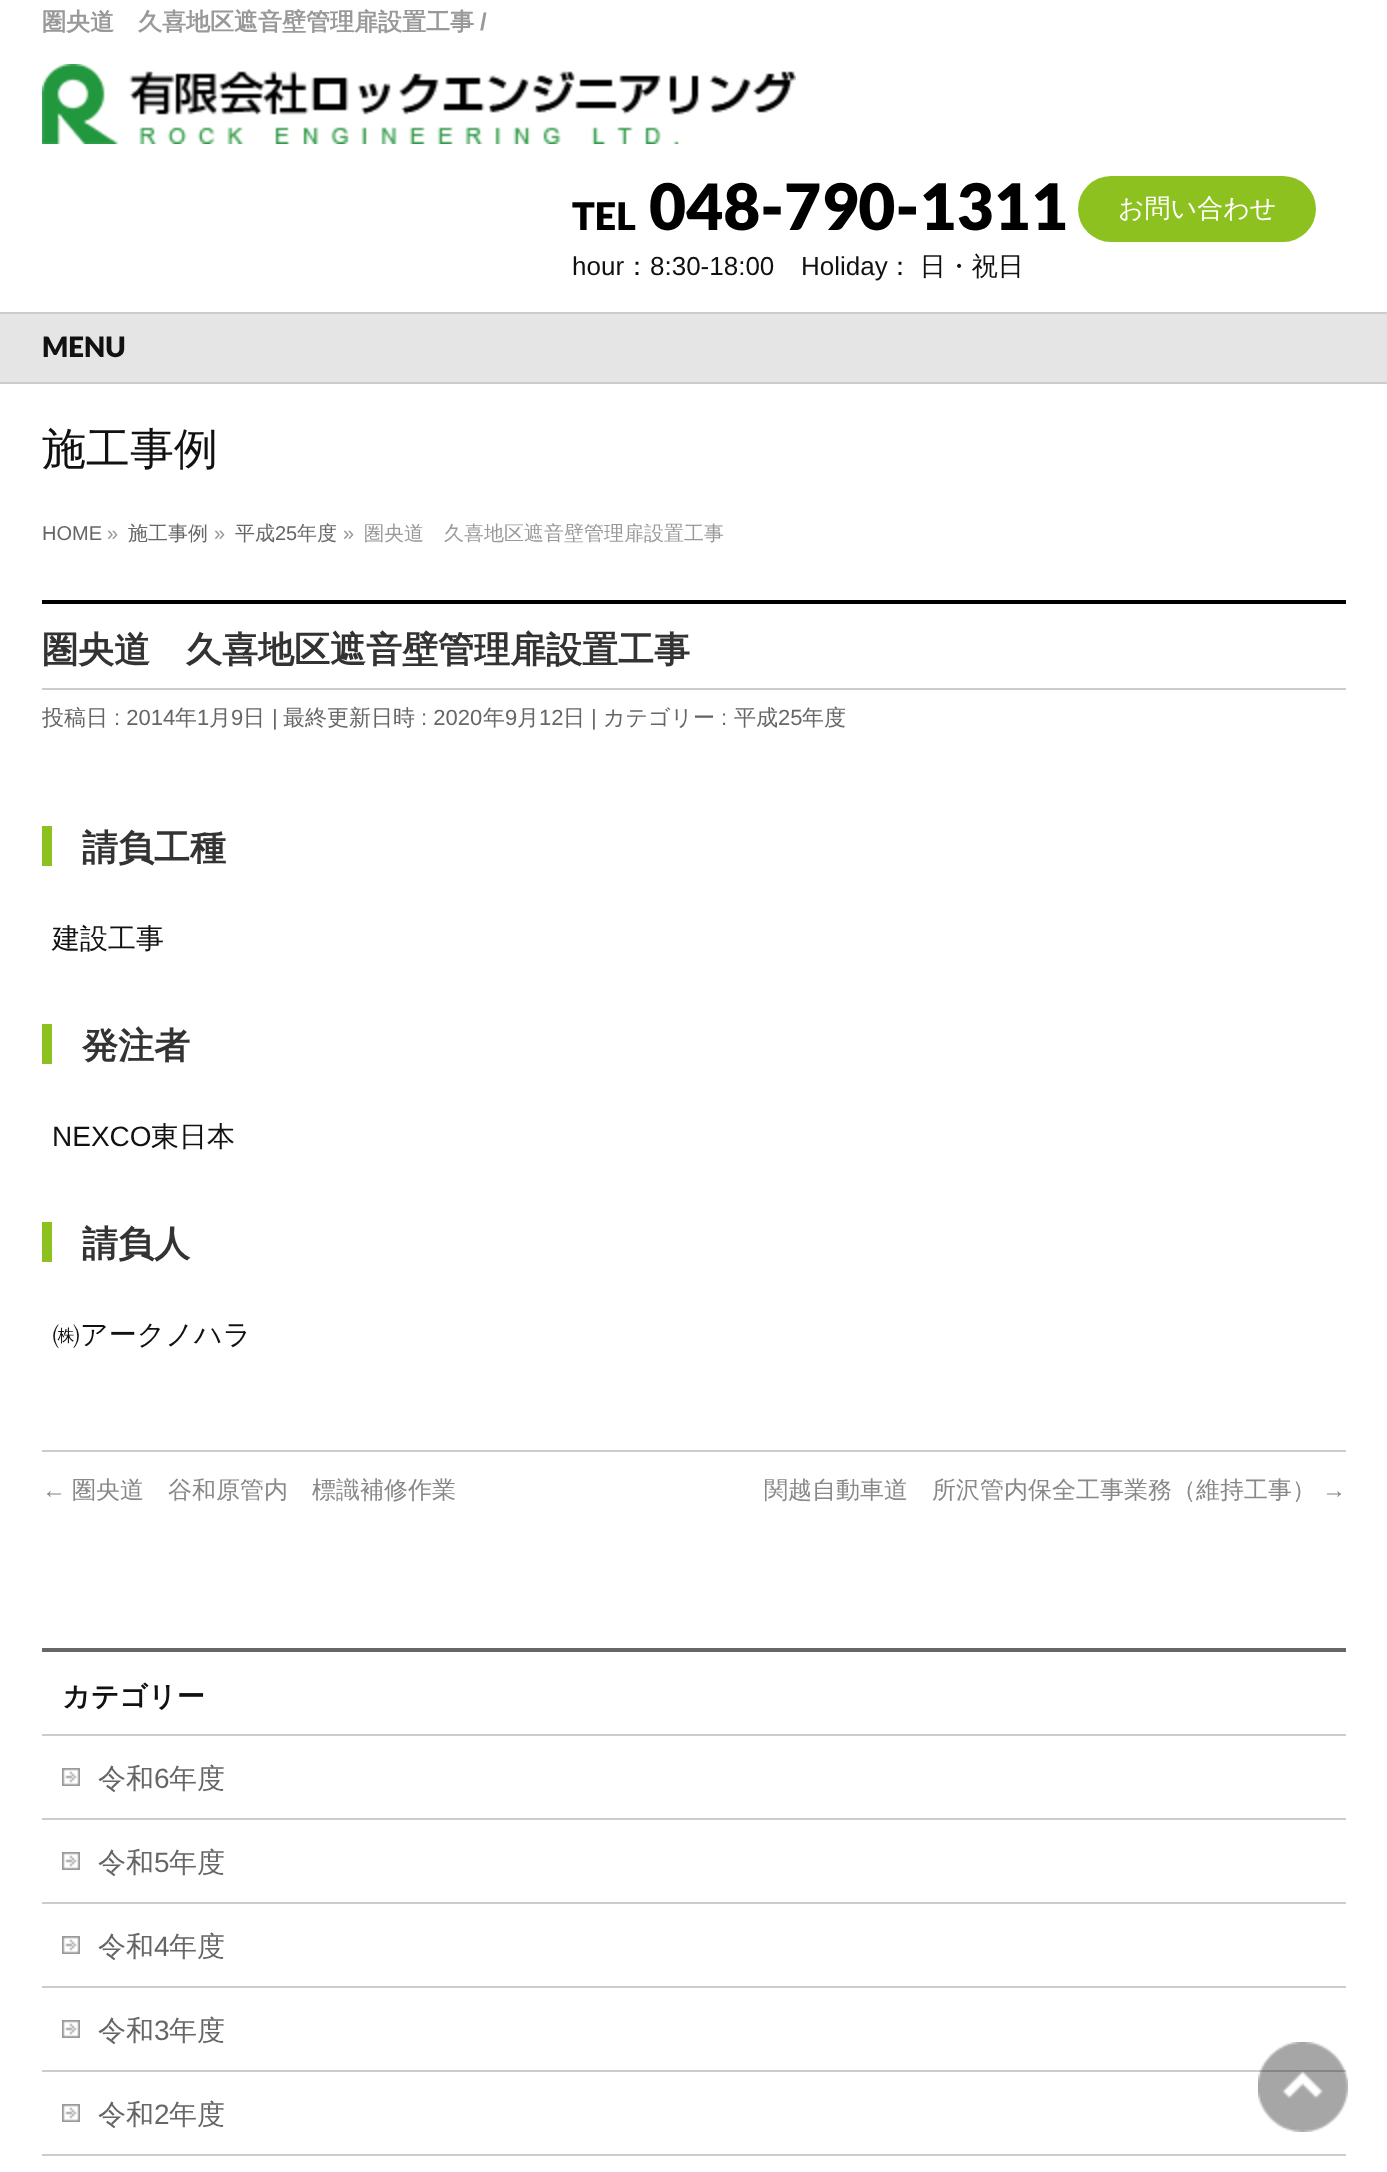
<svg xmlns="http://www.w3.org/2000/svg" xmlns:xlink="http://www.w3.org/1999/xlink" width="1387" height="2172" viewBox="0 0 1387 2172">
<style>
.cls-1{font:bold 24px WenQuanYi Zen Hei;fill:#999999}
.cls-2{font:bold 24px Liberation Sans;fill:#999999}
.cls-3{font:900 38px Lato;fill:#000000}
.cls-4{font:900 64px Lato;fill:#000000}
.cls-5{font:500 26px WenQuanYi Zen Hei;fill:#ffffff}
.cls-6{font:26px Liberation Sans;fill:#111111}
.cls-7{font:500 26px WenQuanYi Zen Hei;fill:#111111}
.cls-8{font:900 28px Lato;fill:#111111}
.cls-9{font:500 44px WenQuanYi Zen Hei;fill:#111111}
.cls-10{font:20px Liberation Sans;fill:#666666}
.cls-11{font:20px Liberation Sans;fill:#999999}
.cls-12{font:500 20px WenQuanYi Zen Hei;fill:#666666}
.cls-13{font:500 20px WenQuanYi Zen Hei;fill:#999999}
.cls-14{font:bold 36px WenQuanYi Zen Hei;fill:#333333}
.cls-15{font:500 22px WenQuanYi Zen Hei;fill:#666666}
.cls-16{font:22px Liberation Sans;fill:#666666}
.cls-17{font:500 28px WenQuanYi Zen Hei;fill:#111111}
.cls-18{font:28px Liberation Sans;fill:#111111}
.cls-19{font:24px Liberation Sans;fill:#888888}
.cls-20{font:500 24px WenQuanYi Zen Hei;fill:#888888}
.cls-21{font:bold 28px WenQuanYi Zen Hei;fill:#111111}
.cls-22{font:500 28px WenQuanYi Zen Hei;fill:#666666}
.cls-23{font:28px Liberation Sans;fill:#666666}
</style>
<rect width="100%" height="100%" fill="#ffffff"/>
<image xlink:href="image0.png" x="42" y="64" width="754" height="80"/>
<rect fill="#8cc11f" x="1078" y="176" width="238" height="66" rx="33"/>
<rect fill="#cccccc" x="0" y="312" width="1387" height="2"/>
<rect fill="#cccccc" x="0" y="382" width="1387" height="2"/>
<rect fill="#e5e5e5" x="0" y="314" width="1387" height="68"/>
<rect fill="#000000" x="42" y="600" width="1304" height="4"/>
<rect fill="#cccccc" x="42" y="688" width="1304" height="2"/>
<rect fill="#8cc11f" x="42" y="826" width="10" height="40"/>
<rect fill="#8cc11f" x="42" y="1024" width="10" height="40"/>
<rect fill="#8cc11f" x="42" y="1222" width="10" height="40"/>
<rect fill="#cccccc" x="42" y="1450" width="1304" height="2"/>
<rect fill="#666666" x="42" y="1648" width="1304" height="4"/>
<rect fill="#cccccc" x="42" y="1734" width="1304" height="2"/>
<rect fill="#cccccc" x="42" y="1818" width="1304" height="2"/>
<image xlink:href="image1.png" x="62" y="1768" width="18" height="18"/>
<rect fill="#cccccc" x="42" y="1902" width="1304" height="2"/>
<image xlink:href="image1.png" x="62" y="1852" width="18" height="18"/>
<rect fill="#cccccc" x="42" y="1986" width="1304" height="2"/>
<image xlink:href="image1.png" x="62" y="1936" width="18" height="18"/>
<rect fill="#cccccc" x="42" y="2070" width="1304" height="2"/>
<image xlink:href="image1.png" x="62" y="2020" width="18" height="18"/>
<rect fill="#cccccc" x="42" y="2154" width="1304" height="2"/>
<image xlink:href="image1.png" x="62" y="2104" width="18" height="18"/>
<image xlink:href="image2.png" x="1258" y="2042" width="90" height="90"/>
<text class="cls-1" x="42" y="30">圏央道　久喜地区遮音壁管理扉設置工事</text>
<text class="cls-2" x="480" y="30">/</text>
<text class="cls-3" x="572" y="230">TEL</text>
<text class="cls-4" x="649" y="230">048-790-1311</text>
<text class="cls-5" x="1118" y="217">お問い合わせ</text>
<text class="cls-6" x="572" y="275">hour</text>
<text class="cls-7" x="624" y="275">：</text>
<text class="cls-6" x="650" y="275">8:30-18:00</text>
<text class="cls-6" x="801" y="275">Holiday</text>
<text class="cls-7" x="887" y="275" word-spacing="-1">： 日・祝日</text>
<text class="cls-8" x="42" y="357">MENU</text>
<text class="cls-9" x="42" y="464">施工事例</text>
<text class="cls-10" x="42" y="540">HOME</text>
<text class="cls-11" x="107" y="540">»</text>
<text class="cls-12" x="128" y="540">施工事例</text>
<text class="cls-11" x="214" y="540">»</text>
<text class="cls-12" x="235" y="540">平成</text>
<text class="cls-10" x="275" y="540">25</text>
<text class="cls-12" x="297" y="540">年度</text>
<text class="cls-11" x="343" y="540">»</text>
<text class="cls-13" x="364" y="540">圏央道　久喜地区遮音壁管理扉設置工事</text>
<text class="cls-14" x="42" y="662">圏央道　久喜地区遮音壁管理扉設置工事</text>
<text class="cls-15" x="42" y="725">投稿日</text>
<text class="cls-16" x="114" y="725">: 2014</text>
<text class="cls-15" x="175" y="725">年</text>
<text class="cls-16" x="197" y="725">1</text>
<text class="cls-15" x="209" y="725">月</text>
<text class="cls-16" x="231" y="725">9</text>
<text class="cls-15" x="243" y="725">日</text>
<text class="cls-16" x="272" y="725">|</text>
<text class="cls-15" x="283" y="725">最終更新日時</text>
<text class="cls-16" x="421" y="725">: 2020</text>
<text class="cls-15" x="483" y="725">年</text>
<text class="cls-16" x="505" y="725">9</text>
<text class="cls-15" x="517" y="725">月</text>
<text class="cls-16" x="539" y="725">12</text>
<text class="cls-15" x="563" y="725">日</text>
<text class="cls-16" x="591" y="725">|</text>
<text class="cls-15" x="603" y="725">カテゴリー</text>
<text class="cls-16" x="721" y="725">:</text>
<text class="cls-15" x="734" y="725">平成</text>
<text class="cls-16" x="778" y="725">25</text>
<text class="cls-15" x="802" y="725">年度</text>
<text class="cls-14" x="82" y="860">請負工種</text>
<text class="cls-17" x="52" y="948">建設工事</text>
<text class="cls-14" x="82" y="1058">発注者</text>
<text class="cls-18" x="52" y="1146">NEXCO</text>
<text class="cls-17" x="151" y="1146">東日本</text>
<text class="cls-14" x="82" y="1256">請負人</text>
<text class="cls-17" x="52" y="1344">㈱アークノハラ</text>
<text class="cls-19" x="42" y="1498">←</text>
<text class="cls-20" x="72" y="1498">圏央道　谷和原管内　標識補修作業</text>
<text class="cls-20" x="764" y="1498">関越自動車道　所沢管内保全工事業務（維持工事）</text>
<text class="cls-19" x="1322" y="1498">→</text>
<text class="cls-21" x="62" y="1706">カテゴリー</text>
<text class="cls-22" x="98" y="1788">令和</text>
<text class="cls-23" x="154" y="1788">6</text>
<text class="cls-22" x="169" y="1788">年度</text>
<text class="cls-22" x="98" y="1872">令和</text>
<text class="cls-23" x="154" y="1872">5</text>
<text class="cls-22" x="169" y="1872">年度</text>
<text class="cls-22" x="98" y="1956">令和</text>
<text class="cls-23" x="154" y="1956">4</text>
<text class="cls-22" x="169" y="1956">年度</text>
<text class="cls-22" x="98" y="2040">令和</text>
<text class="cls-23" x="154" y="2040">3</text>
<text class="cls-22" x="169" y="2040">年度</text>
<text class="cls-22" x="98" y="2124">令和</text>
<text class="cls-23" x="154" y="2124">2</text>
<text class="cls-22" x="169" y="2124">年度</text>
</svg>
